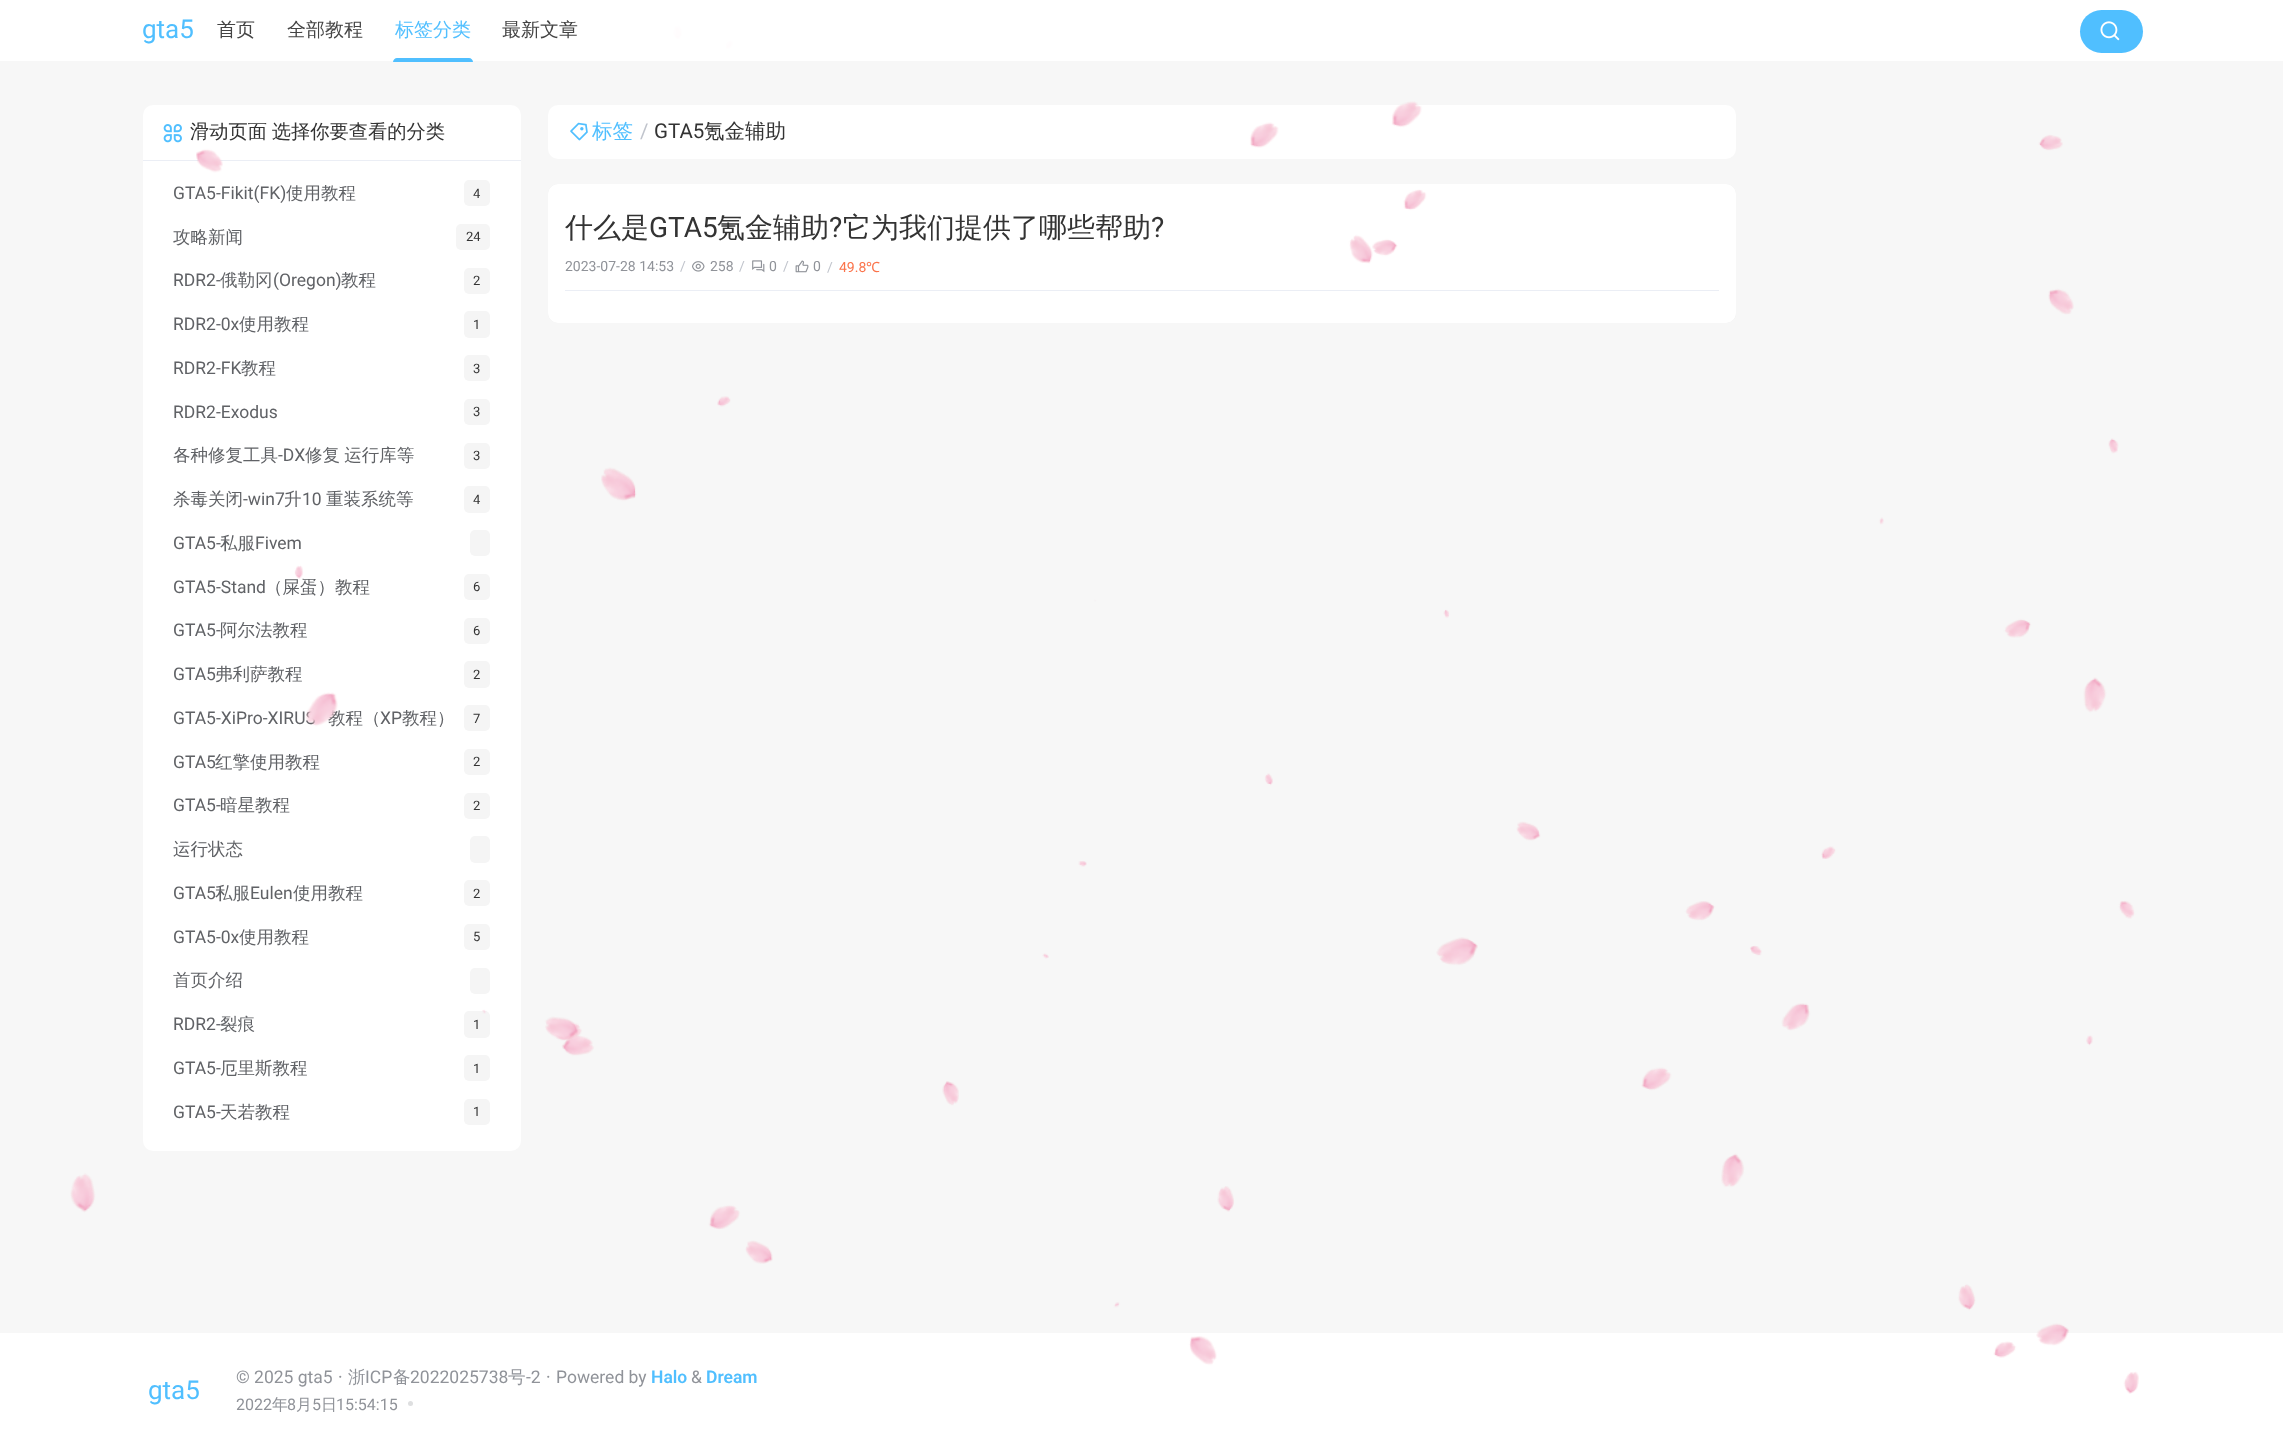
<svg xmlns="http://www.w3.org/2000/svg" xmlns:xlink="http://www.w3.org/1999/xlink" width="2283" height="1449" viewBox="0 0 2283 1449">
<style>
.cls-1{font:500 19.25px WenQuanYi Zen Hei;fill:#333333}
.cls-2{font:17.5px Roboto;fill:#606266}
.cls-3{font:500 17.5px WenQuanYi Zen Hei;fill:#606266}
.cls-4{font:13px Roboto;fill:#333333}
.cls-5{font:500 20.5px WenQuanYi Zen Hei;fill:#50bfff}
.cls-6{font:20.5px Roboto;fill:#c0c4cc}
.cls-7{font:20.5px Roboto;fill:#333333}
.cls-8{font:500 20.5px WenQuanYi Zen Hei;fill:#333333}
.cls-9{font:500 28px WenQuanYi Zen Hei;fill:#333333}
.cls-10{font:28px Roboto;fill:#333333}
.cls-11{font:14px Roboto;fill:#909399}
.cls-12{font:14px Roboto;fill:#c0c4cc}
.cls-13{font:14px Roboto;fill:#fb734a}
.cls-14{font:14px Noto Sans;fill:#fb734a}
.cls-15{font:26px Roboto;fill:#50bfff}
.cls-16{font:17.5px Roboto;fill:#909399}
.cls-17{font:500 17.5px WenQuanYi Zen Hei;fill:#909399}
.cls-18{font:600 17.5px Roboto;fill:#50bfff}
.cls-19{font:500 19px WenQuanYi Zen Hei;fill:#444444}
.cls-20{font:500 19px WenQuanYi Zen Hei;fill:#50bfff}
.cls-21{font:16px Roboto;fill:#909399}
.cls-22{font:500 16px WenQuanYi Zen Hei;fill:#909399}
</style>
<defs>
<clipPath id="clip1"><path d="M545 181H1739V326H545ZM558 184H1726C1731.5 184 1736 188.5 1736 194V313C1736 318.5 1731.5 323 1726 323H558C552.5 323 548 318.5 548 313V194C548 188.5 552.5 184 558 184Z" clip-rule="evenodd"/></clipPath>
</defs>
<rect width="100%" height="100%" fill="#f7f7f7"/>
<rect fill="#ffffff" fill-opacity="0.94" x="143" y="105" width="378" height="1046" rx="10"/>
<rect fill="#ebeef5" x="143" y="160" width="378" height="1"/>
<image xlink:href="image2.png" x="163" y="124" width="19" height="19"/>
<rect fill="#f5f5f5" x="464" y="180" width="26" height="26" rx="5"/>
<rect fill="#f5f5f5" x="456" y="224" width="34" height="26" rx="5"/>
<rect fill="#f5f5f5" x="464" y="268" width="26" height="26" rx="5"/>
<rect fill="#f5f5f5" x="464" y="311" width="26" height="27" rx="5"/>
<rect fill="#f5f5f5" x="464" y="355" width="26" height="26" rx="5"/>
<rect fill="#f5f5f5" x="464" y="399" width="26" height="26" rx="5"/>
<rect fill="#f5f5f5" x="464" y="443" width="26" height="26" rx="5"/>
<rect fill="#f5f5f5" x="464" y="486" width="26" height="27" rx="5"/>
<rect fill="#f5f5f5" x="470" y="530" width="20" height="26" rx="5"/>
<rect fill="#f5f5f5" x="464" y="574" width="26" height="26" rx="5"/>
<rect fill="#f5f5f5" x="464" y="618" width="26" height="26" rx="5"/>
<rect fill="#f5f5f5" x="464" y="661" width="26" height="27" rx="5"/>
<rect fill="#f5f5f5" x="464" y="705" width="26" height="26" rx="5"/>
<rect fill="#f5f5f5" x="464" y="749" width="26" height="26" rx="5"/>
<rect fill="#f5f5f5" x="464" y="793" width="26" height="26" rx="5"/>
<rect fill="#f5f5f5" x="470" y="836" width="20" height="27" rx="5"/>
<rect fill="#f5f5f5" x="464" y="880" width="26" height="26" rx="5"/>
<rect fill="#f5f5f5" x="464" y="924" width="26" height="26" rx="5"/>
<rect fill="#f5f5f5" x="470" y="968" width="20" height="26" rx="5"/>
<rect fill="#f5f5f5" x="464" y="1011" width="26" height="27" rx="5"/>
<rect fill="#f5f5f5" x="464" y="1055" width="26" height="26" rx="5"/>
<rect fill="#f5f5f5" x="464" y="1099" width="26" height="26" rx="5"/>
<rect fill="#ffffff" fill-opacity="0.94" x="548" y="105" width="1188" height="54" rx="10"/>
<image xlink:href="image3.png" x="570" y="122" width="18" height="19"/>
<g clip-path="url(#clip1)">
<rect fill="#000000" fill-opacity="0.1" filter="blur(0.5px)" x="548" y="184" width="1188" height="139" rx="10"/>
</g>
<rect fill="#ffffff" fill-opacity="0.94" x="548" y="184" width="1188" height="139" rx="10"/>
<image xlink:href="image4.png" x="692" y="261" width="13" height="11"/>
<image xlink:href="image5.png" x="752" y="260" width="13" height="13"/>
<image xlink:href="image6.png" x="795" y="260" width="14" height="13"/>
<rect fill="#ebeef5" x="565" y="290" width="1154" height="1"/>
<rect fill="#ffffff" x="0" y="1333" width="2283" height="116"/>
<circle fill="#dedfe0" cx="410.5" cy="1403.5" r="2.5"/>
<text class="cls-1" x="190" y="138" word-spacing="-1">滑动页面 选择你要查看的分类</text>
<text class="cls-2" x="173" y="199">GTA5-Fikit(FK)</text>
<text class="cls-3" x="286" y="199">使用教程</text>
<text class="cls-4" x="473" y="198">4</text>
<text class="cls-3" x="173" y="243">攻略新闻</text>
<text class="cls-4" x="466" y="241">24</text>
<text class="cls-2" x="173" y="286">RDR2-</text>
<text class="cls-3" x="220" y="286">俄勒冈</text>
<text class="cls-2" x="273" y="286">(Oregon)</text>
<text class="cls-3" x="341" y="286">教程</text>
<text class="cls-4" x="473" y="285">2</text>
<text class="cls-2" x="173" y="330">RDR2-0x</text>
<text class="cls-3" x="239" y="330">使用教程</text>
<text class="cls-4" x="473" y="329">1</text>
<text class="cls-2" x="173" y="374">RDR2-FK</text>
<text class="cls-3" x="241" y="374">教程</text>
<text class="cls-4" x="473" y="373">3</text>
<text class="cls-2" x="173" y="418">RDR2-Exodus</text>
<text class="cls-4" x="473" y="416">3</text>
<text class="cls-3" x="173" y="461">各种修复工具</text>
<text class="cls-2" x="278" y="461">-DX</text>
<text class="cls-3" x="305" y="461" word-spacing="-1">修复 运行库等</text>
<text class="cls-4" x="473" y="460">3</text>
<text class="cls-3" x="173" y="505">杀毒关闭</text>
<text class="cls-2" x="243" y="505">-win7</text>
<text class="cls-3" x="284" y="505">升</text>
<text class="cls-2" x="302" y="505">10</text>
<text class="cls-3" x="326" y="505">重装系统等</text>
<text class="cls-4" x="473" y="504">4</text>
<text class="cls-2" x="173" y="549">GTA5-</text>
<text class="cls-3" x="220" y="549">私服</text>
<text class="cls-2" x="255" y="549">Fivem</text>
<text class="cls-2" x="173" y="593">GTA5-Stand</text>
<text class="cls-3" x="265" y="593">（屎蛋）教程</text>
<text class="cls-4" x="473" y="591">6</text>
<text class="cls-2" x="173" y="636">GTA5-</text>
<text class="cls-3" x="220" y="636">阿尔法教程</text>
<text class="cls-4" x="473" y="635">6</text>
<text class="cls-2" x="173" y="680">GTA5</text>
<text class="cls-3" x="215" y="680">弗利萨教程</text>
<text class="cls-4" x="473" y="679">2</text>
<text class="cls-2" x="173" y="724">GTA5-XiPro-XIRUS</text>
<text class="cls-3" x="328" y="724">教程（</text>
<text class="cls-2" x="380" y="724">XP</text>
<text class="cls-3" x="402" y="724">教程）</text>
<text class="cls-4" x="473" y="723">7</text>
<text class="cls-2" x="173" y="768">GTA5</text>
<text class="cls-3" x="215" y="768">红擎使用教程</text>
<text class="cls-4" x="473" y="766">2</text>
<text class="cls-2" x="173" y="811">GTA5-</text>
<text class="cls-3" x="220" y="811">暗星教程</text>
<text class="cls-4" x="473" y="810">2</text>
<text class="cls-3" x="173" y="855">运行状态</text>
<text class="cls-2" x="173" y="899">GTA5</text>
<text class="cls-3" x="215" y="899">私服</text>
<text class="cls-2" x="250" y="899">Eulen</text>
<text class="cls-3" x="293" y="899">使用教程</text>
<text class="cls-4" x="473" y="898">2</text>
<text class="cls-2" x="173" y="943">GTA5-0x</text>
<text class="cls-3" x="239" y="943">使用教程</text>
<text class="cls-4" x="473" y="941">5</text>
<text class="cls-3" x="173" y="986">首页介绍</text>
<text class="cls-2" x="173" y="1030">RDR2-</text>
<text class="cls-3" x="220" y="1030">裂痕</text>
<text class="cls-4" x="473" y="1029">1</text>
<text class="cls-2" x="173" y="1074">GTA5-</text>
<text class="cls-3" x="220" y="1074">厄里斯教程</text>
<text class="cls-4" x="473" y="1073">1</text>
<text class="cls-2" x="173" y="1118">GTA5-</text>
<text class="cls-3" x="220" y="1118">天若教程</text>
<text class="cls-4" x="473" y="1116">1</text>
<text class="cls-5" x="592" y="138">标签</text>
<text class="cls-6" x="640" y="138">/</text>
<text class="cls-7" x="654" y="138">GTA5</text>
<text class="cls-8" x="704" y="138">氪金辅助</text>
<text class="cls-9" x="565" y="237">什么是</text>
<text class="cls-10" x="649" y="237">GTA5</text>
<text class="cls-9" x="717" y="237">氪金辅助</text>
<text class="cls-10" x="829" y="237">?</text>
<text class="cls-9" x="843" y="237">它为我们提供了哪些帮助</text>
<text class="cls-10" x="1151" y="237">?</text>
<text class="cls-11" x="565" y="271">2023-07-28 14:53</text>
<text class="cls-12" x="680" y="271">/</text>
<text class="cls-11" x="710" y="271">258</text>
<text class="cls-12" x="739" y="271">/</text>
<text class="cls-11" x="769" y="271">0</text>
<text class="cls-12" x="783" y="271">/</text>
<text class="cls-11" x="813" y="271">0</text>
<text class="cls-12" x="827" y="272">/</text>
<text class="cls-13" x="839" y="272">49.8</text>
<text class="cls-14" x="866" y="272">℃</text>
<text class="cls-15" x="148" y="1399">gta5</text>
<text class="cls-16" x="236" y="1383">© 2025 gta5</text>
<text class="cls-16" x="338" y="1383">·</text>
<text class="cls-17" x="348" y="1383">浙</text>
<text class="cls-16" x="365" y="1383">ICP</text>
<text class="cls-17" x="393" y="1383">备</text>
<text class="cls-16" x="410" y="1383">2022025738</text>
<text class="cls-17" x="508" y="1383">号</text>
<text class="cls-16" x="526" y="1383">-2</text>
<text class="cls-16" x="546" y="1383">·</text>
<text class="cls-16" x="556" y="1383">Powered by</text>
<text class="cls-18" x="651" y="1383">Halo</text>
<text class="cls-16" x="691" y="1383">&amp;</text>
<text class="cls-18" x="706" y="1383">Dream</text>
<image xlink:href="image1.png" x="70" y="25" width="2069" height="1369"/>
<rect fill="#ffffff" fill-opacity="0.94" x="0" y="0" width="2283" height="61"/>
<rect fill="#50bfff" x="2080" y="10" width="63" height="43" rx="21.5"/>
<image xlink:href="image0.png" x="2100" y="21" width="20" height="20"/>
<text class="cls-19" x="502" y="36">最新文章</text>
<path fill="#50bfff" d="M397 58H469C471 58 473 60 473 62H393C393 60 395 58 397 58Z"/>
<text class="cls-20" x="395" y="36">标签分类</text>
<text class="cls-19" x="287" y="36">全部教程</text>
<text class="cls-19" x="217" y="36">首页</text>
<text class="cls-15" x="142" y="38">gta5</text>
<text class="cls-21" x="236" y="1410">2022</text>
<text class="cls-22" x="272" y="1410">年</text>
<text class="cls-21" x="287" y="1410">8</text>
<text class="cls-22" x="296" y="1410">月</text>
<text class="cls-21" x="312" y="1410">5</text>
<text class="cls-22" x="321" y="1410">日</text>
<text class="cls-21" x="336" y="1410">15:54:15</text>
</svg>
